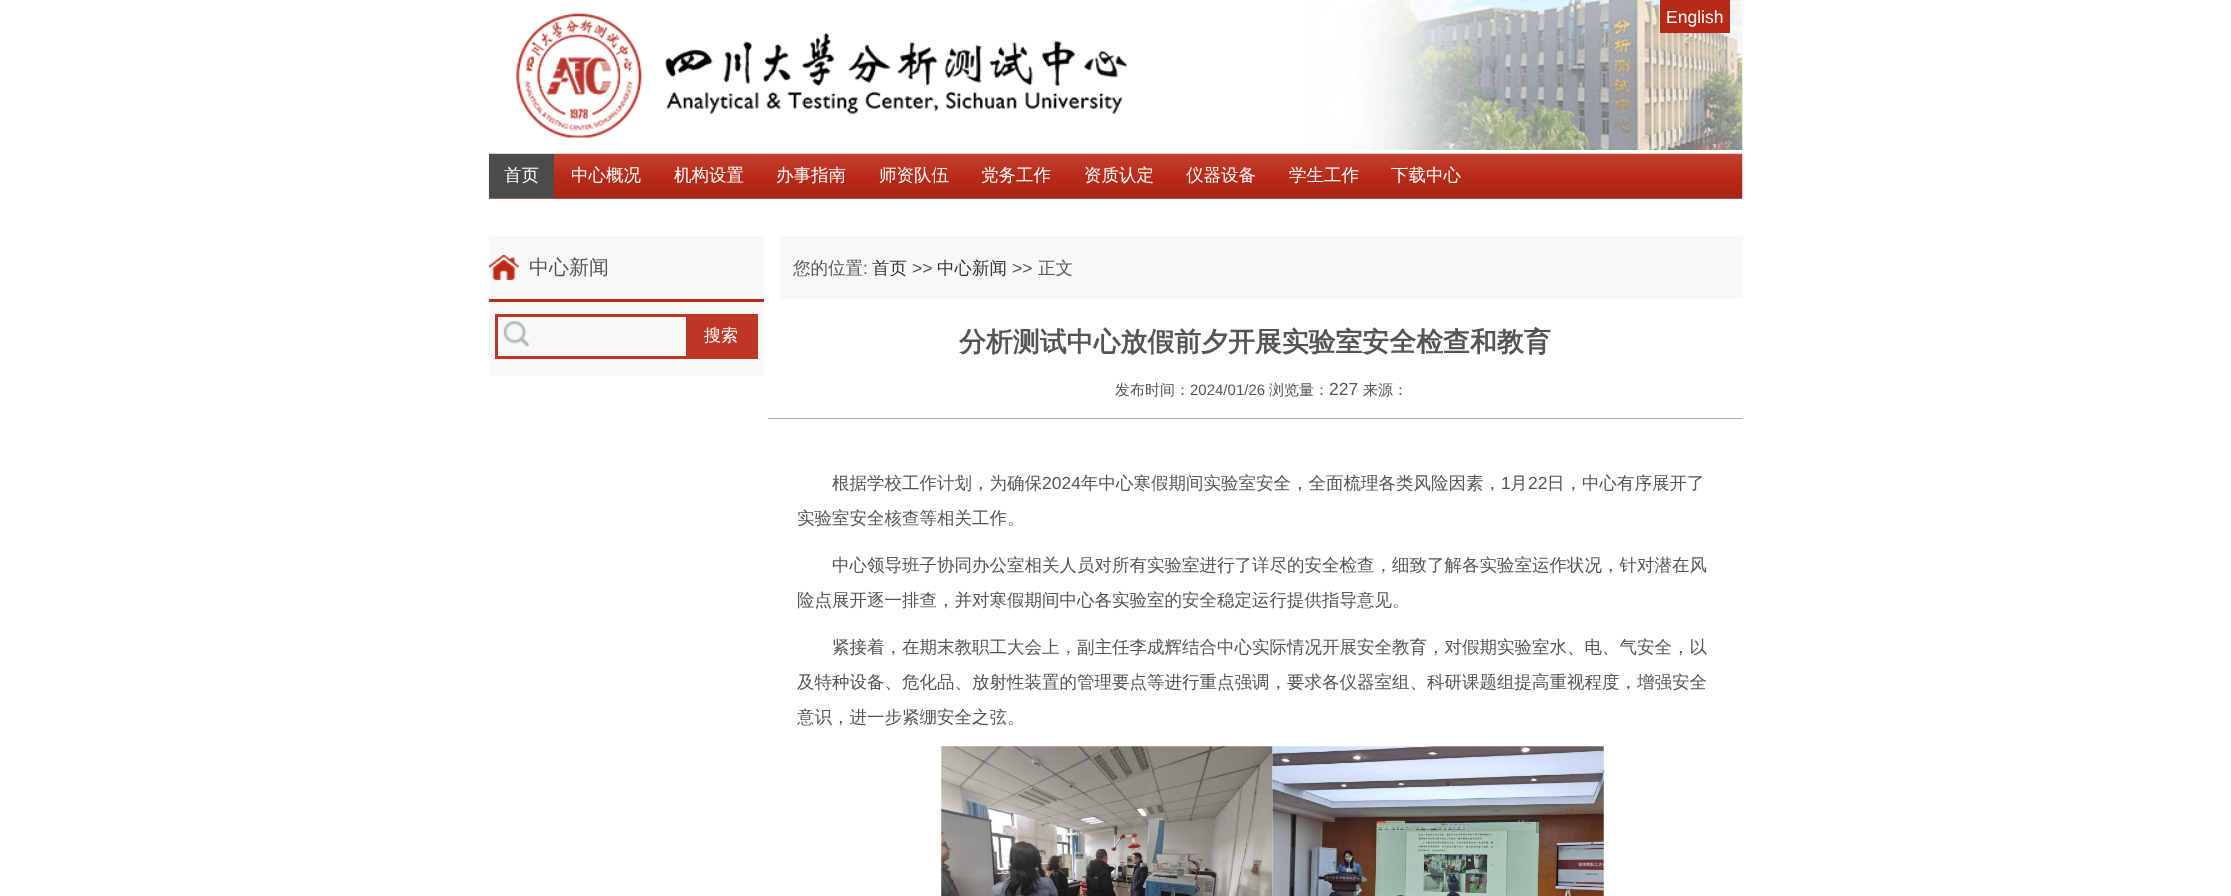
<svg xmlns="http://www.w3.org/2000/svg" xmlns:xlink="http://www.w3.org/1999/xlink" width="2231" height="896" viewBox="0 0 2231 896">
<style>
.cls-1{font:17.5px Liberation Sans;fill:#ffffff}
.cls-2{font:500 17.5px WenQuanYi Zen Hei;fill:#ffffff}
.cls-3{font:500 20px WenQuanYi Zen Hei;fill:#555555}
.cls-4{font:500 17px WenQuanYi Zen Hei;fill:#ffffff}
.cls-5{font:500 17.5px WenQuanYi Zen Hei;fill:#555555}
.cls-6{font:17.5px Liberation Sans;fill:#555555}
.cls-7{font:500 17.5px WenQuanYi Zen Hei;fill:#333333}
.cls-8{font:bold 26.9px WenQuanYi Zen Hei;fill:#555555}
.cls-9{font:500 15px WenQuanYi Zen Hei;fill:#555555}
.cls-10{font:15px Liberation Sans;fill:#555555}
</style>
<rect width="100%" height="100%" fill="#ffffff"/>
<image xlink:href="image0.png" x="516" y="0" width="1227" height="150"/>
<rect fill="#b52916" x="1660" y="0" width="70" height="33"/>
<image xlink:href="image1.png" x="488" y="153" width="1255" height="46"/>
<rect fill="#4b4b4b" x="489" y="154" width="65" height="44"/>
<rect fill="#f8f8f8" x="489" y="236" width="275" height="140"/>
<image xlink:href="image2.png" x="488" y="255" width="31" height="25"/>
<rect fill="#ba2a17" x="489" y="299" width="275" height="3"/>
<rect fill="none" stroke="#be3726" stroke-width="3" x="496.5" y="315.5" width="260" height="42"/>
<image xlink:href="image3.png" x="503" y="321" width="26" height="26"/>
<rect fill="#be3726" x="686" y="317" width="69" height="39"/>
<rect fill="#f8f8f8" x="780" y="236" width="963" height="63"/>
<rect fill="#afafaf" x="768" y="418" width="975" height="1"/>
<image xlink:href="image4.png" x="941" y="746" width="332" height="150"/>
<image xlink:href="image5.png" x="1272" y="746" width="332" height="150"/>
<text class="cls-1" x="1666" y="23">English</text>
<text class="cls-2" x="504" y="181">首页</text>
<text class="cls-2" x="571" y="181">中心概况</text>
<text class="cls-2" x="674" y="181">机构设置</text>
<text class="cls-2" x="776" y="181">办事指南</text>
<text class="cls-2" x="879" y="181">师资队伍</text>
<text class="cls-2" x="981" y="181">党务工作</text>
<text class="cls-2" x="1084" y="181">资质认定</text>
<text class="cls-2" x="1186" y="181">仪器设备</text>
<text class="cls-2" x="1289" y="181">学生工作</text>
<text class="cls-2" x="1391" y="181">下载中心</text>
<text class="cls-3" x="529" y="274">中心新闻</text>
<text class="cls-4" x="704" y="341">搜索</text>
<text class="cls-5" x="793" y="274">您的位置</text>
<text class="cls-6" x="863" y="274">:</text>
<text class="cls-7" x="872" y="274">首页</text>
<text class="cls-6" x="912" y="274">&gt;&gt;</text>
<text class="cls-7" x="937" y="274">中心新闻</text>
<text class="cls-6" x="1012" y="274">&gt;&gt;</text>
<text class="cls-5" x="1038" y="274">正文</text>
<text class="cls-8" x="959" y="351">分析测试中心放假前夕开展实验室安全检查和教育</text>
<text class="cls-9" x="1115" y="395">发布时间：</text>
<text class="cls-10" x="1190" y="395">2024/01/26</text>
<text class="cls-9" x="1269" y="395">浏览量：</text>
<text class="cls-6" x="1329" y="395">227</text>
<text class="cls-9" x="1363" y="395">来源：</text>
<text class="cls-5" x="832" y="489">根据学校工作计划，为确保</text>
<text class="cls-6" x="1042" y="489">2024</text>
<text class="cls-5" x="1081" y="489">年中心寒假期间实验室安全，全面梳理各类风险因素，</text>
<text class="cls-6" x="1501" y="489">1</text>
<text class="cls-5" x="1510" y="489">月</text>
<text class="cls-6" x="1528" y="489">22</text>
<text class="cls-5" x="1547" y="489">日，中心有序展开了</text>
<text class="cls-5" x="797" y="524">实验室安全核查等相关工作。</text>
<text class="cls-5" x="832" y="571">中心领导班子协同办公室相关人员对所有实验室进行了详尽的安全检查，细致了解各实验室运作状况，针对潜在风</text>
<text class="cls-5" x="797" y="606">险点展开逐一排查，并对寒假期间中心各实验室的安全稳定运行提供指导意见。</text>
<text class="cls-5" x="832" y="653">紧接着，在期末教职工大会上，副主任李成辉结合中心实际情况开展安全教育，对假期实验室水、电、气安全，以</text>
<text class="cls-5" x="797" y="688">及特种设备、危化品、放射性装置的管理要点等进行重点强调，要求各仪器室组、科研课题组提高重视程度，增强安全</text>
<text class="cls-5" x="797" y="723">意识，进一步紧绷安全之弦。</text>
</svg>
